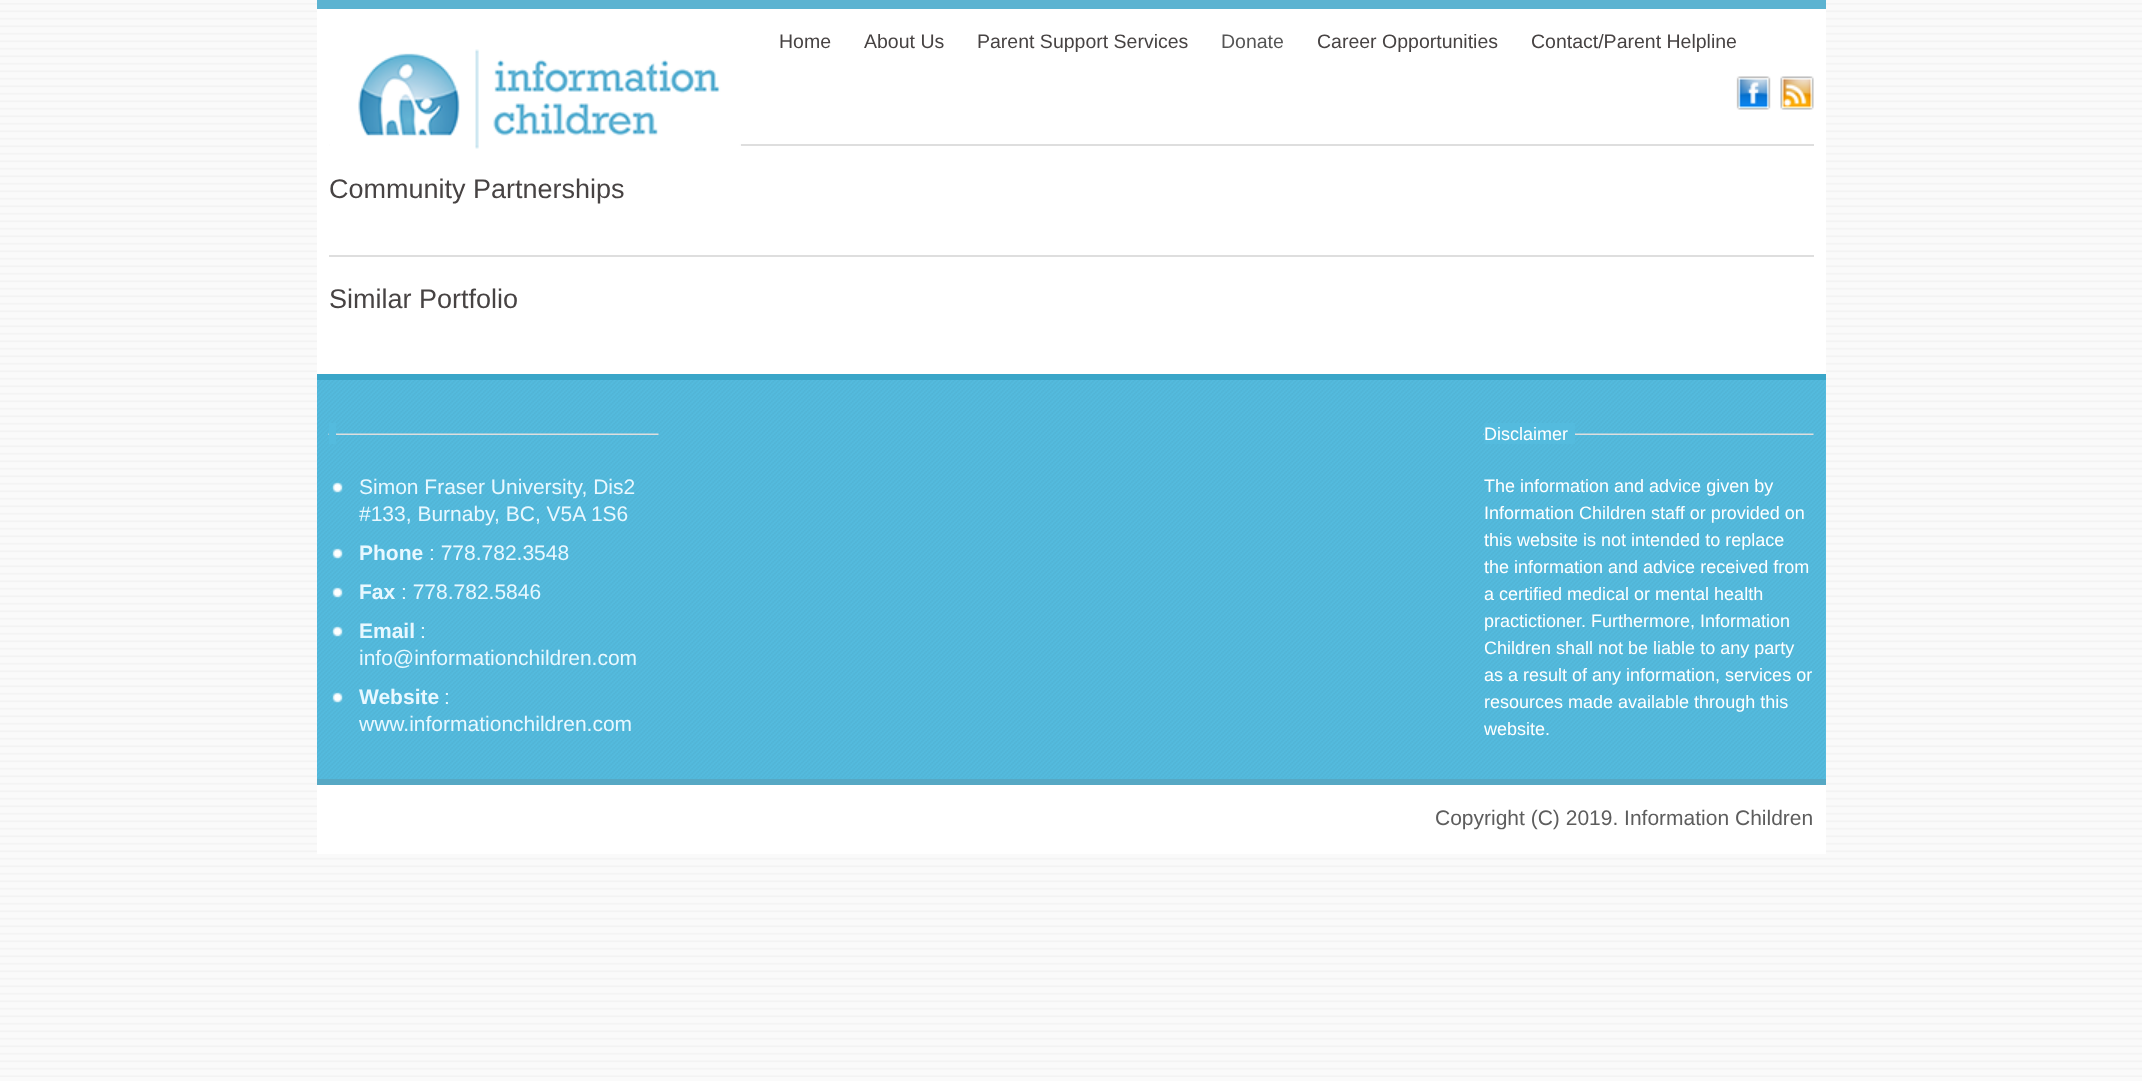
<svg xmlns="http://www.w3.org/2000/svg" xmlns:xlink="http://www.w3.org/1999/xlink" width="2142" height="1081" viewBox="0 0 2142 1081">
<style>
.cls-1{font:19.5px Arimo;fill:#474343}
.cls-2{font:19.5px Arimo;fill:#555555}
.cls-3{font:27px Liberation Sans;fill:#474343}
.cls-4{font:21px Arimo;fill:#e8f8ff}
.cls-5{font:bold 21px Arimo;fill:#e8f8ff}
.cls-6{font:18px Arimo;fill:#ffffff}
.cls-7{font:21px Arimo;fill:#5d5d5d}
</style>
<rect width="100%" height="100%" fill="#fafafa"/>
<image xlink:href="image0.png" x="0" y="3" width="2142" height="1074"/>
<rect fill="#ffffff" x="317" y="9" width="1509" height="365"/>
<rect fill="#5cb3d1" x="317" y="0" width="1509" height="9"/>
<rect fill="#dedede" x="329" y="144" width="1485" height="2"/>
<image xlink:href="image1.png" x="329" y="49" width="412" height="100"/>
<rect fill="#dedede" x="329" y="255" width="1485" height="2"/>
<rect fill="#54bbde" x="317" y="380" width="1509" height="399"/>
<image xlink:href="image2.png" x="317" y="380" width="1508" height="399"/>
<rect fill="#3aa6c9" x="317" y="374" width="1509" height="6"/>
<image xlink:href="image3.png" x="328" y="433" width="331" height="2"/>
<rect fill="#54bbde" x="329" y="423" width="7" height="21"/>
<image xlink:href="image4.png" x="332" y="482" width="11" height="11"/>
<image xlink:href="image5.png" x="332" y="548" width="11" height="11"/>
<image xlink:href="image6.png" x="332" y="587" width="11" height="11"/>
<image xlink:href="image4.png" x="332" y="626" width="11" height="11"/>
<image xlink:href="image5.png" x="332" y="692" width="11" height="11"/>
<image xlink:href="image7.png" x="1483" y="433" width="331" height="2"/>
<rect fill="#54bbde" x="1484" y="423" width="91" height="21"/>
<rect fill="#ffffff" x="317" y="785" width="1509" height="69"/>
<rect fill="#56a8c4" x="317" y="779" width="1509" height="6"/>
<image xlink:href="image8.png" x="1736" y="76" width="35" height="34"/>
<image xlink:href="image9.png" x="1780" y="76" width="34" height="34"/>
<text class="cls-1" x="779" y="48">Home</text>
<text class="cls-1" x="864" y="48">About Us</text>
<text class="cls-1" x="977" y="48">Parent Support Services</text>
<text class="cls-2" x="1221" y="48">Donate</text>
<text class="cls-1" x="1317" y="48">Career Opportunities</text>
<text class="cls-1" x="1531" y="48">Contact/Parent Helpline</text>
<text class="cls-3" x="329" y="198">Community Partnerships</text>
<text class="cls-3" x="329" y="308">Similar Portfolio</text>
<text class="cls-4"><tspan x="359" y="494">Simon Fraser University, Dis2</tspan><tspan x="359" y="521">#133, Burnaby, BC, V5A 1S6</tspan></text>
<text class="cls-5" x="359" y="560">Phone</text>
<text class="cls-4" x="429" y="560">: 778.782.3548</text>
<text class="cls-5" x="359" y="599">Fax</text>
<text class="cls-4" x="401" y="599">: 778.782.5846</text>
<text class="cls-5" x="359" y="638">Email</text>
<text class="cls-4" x="420" y="638">:</text>
<text class="cls-4" x="359" y="665">info@informationchildren.com</text>
<text class="cls-5" x="359" y="704">Website</text>
<text class="cls-4" x="444" y="704">:</text>
<text class="cls-4" x="359" y="731">www.informationchildren.com</text>
<text class="cls-6" x="1484" y="440">Disclaimer</text>
<text class="cls-6"><tspan x="1484" y="492">The information and advice given by</tspan><tspan x="1484" y="519">Information Children staff or provided on</tspan><tspan x="1484" y="546">this website is not intended to replace</tspan><tspan x="1484" y="573">the information and advice received from</tspan><tspan x="1484" y="600">a certified medical or mental health</tspan><tspan x="1484" y="627">practictioner. Furthermore, Information</tspan><tspan x="1484" y="654">Children shall not be liable to any party</tspan><tspan x="1484" y="681">as a result of any information, services or</tspan><tspan x="1484" y="708">resources made available through this</tspan><tspan x="1484" y="735">website.</tspan></text>
<text class="cls-7" x="1435" y="825">Copyright (C) 2019. Information Children</text>
</svg>
